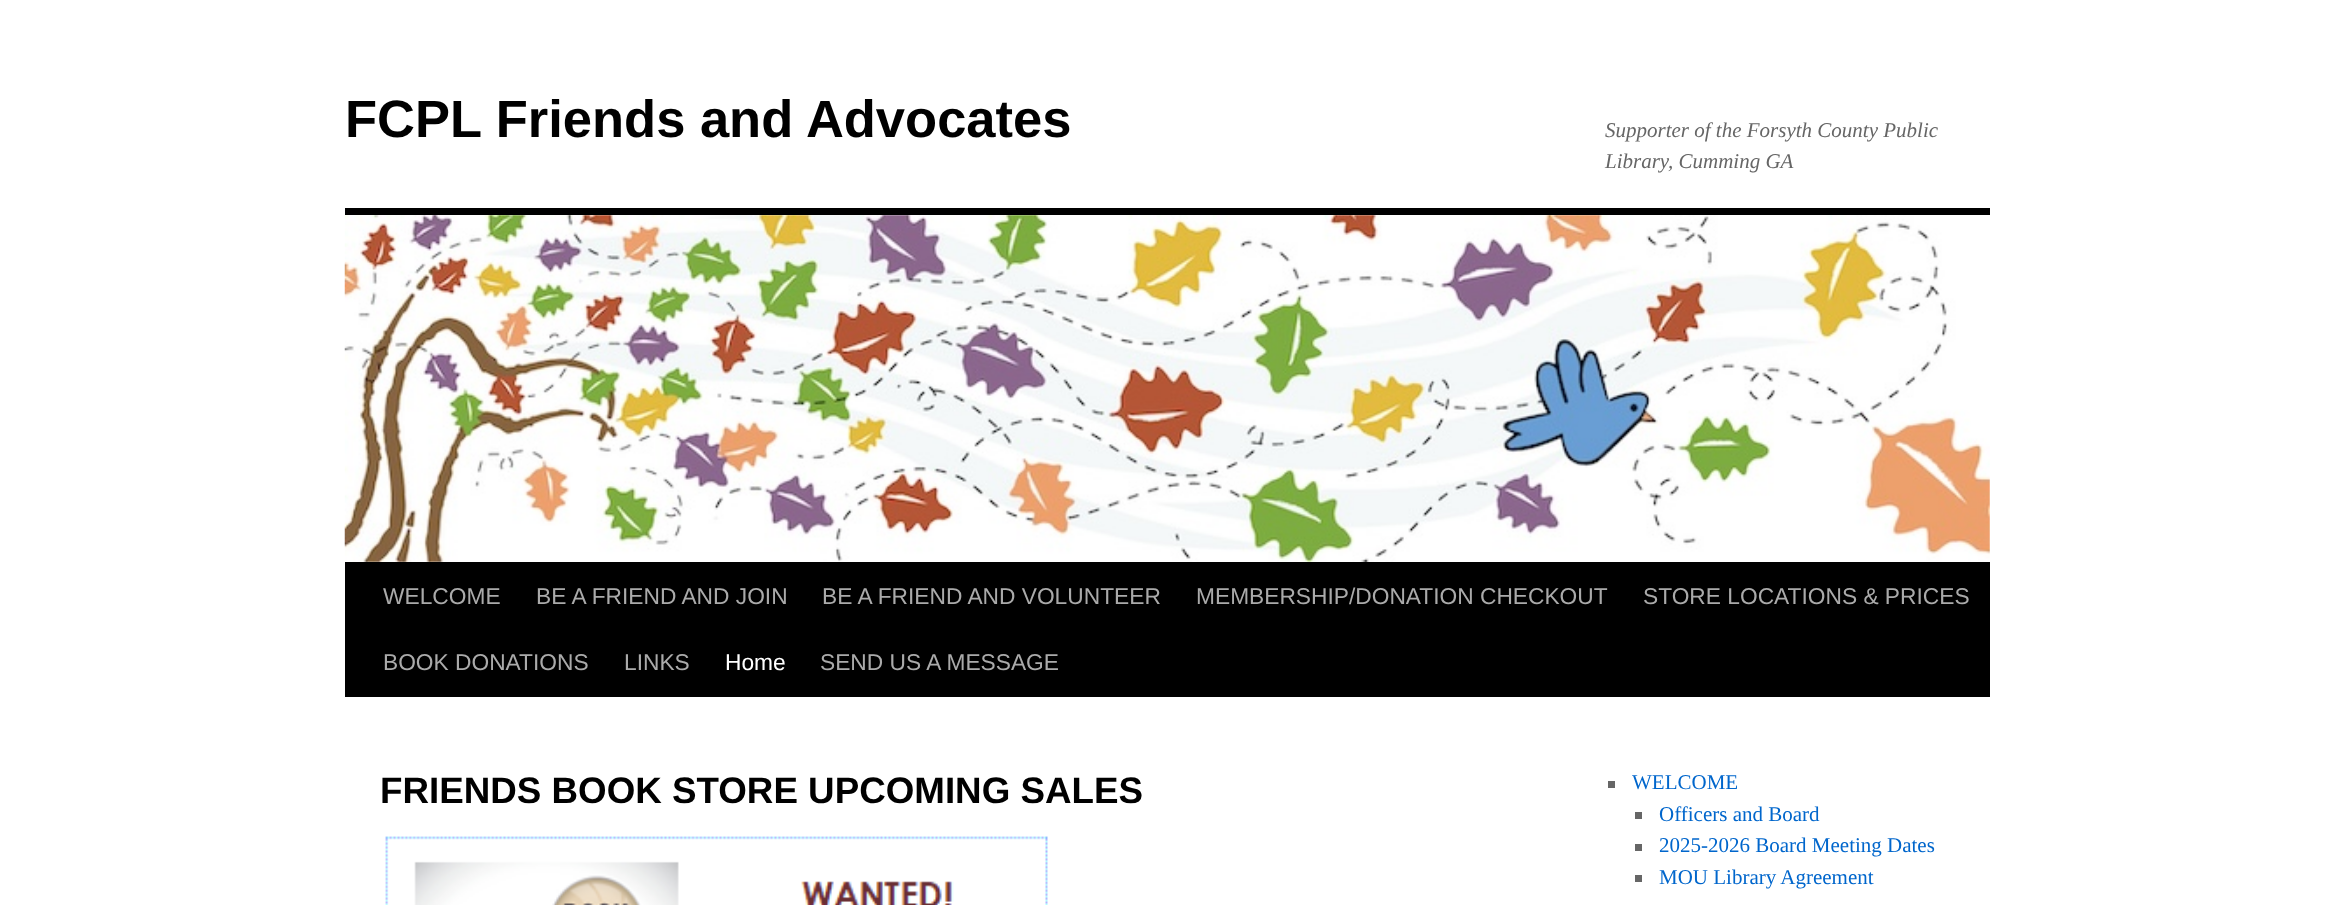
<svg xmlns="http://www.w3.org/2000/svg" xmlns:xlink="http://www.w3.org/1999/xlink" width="2333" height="905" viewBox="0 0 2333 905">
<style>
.cls-1{font:bold 52.5px Liberation Sans;fill:#000000}
.cls-2{font:italic 21px Liberation Serif;fill:#666666}
.cls-3{font:22.75px Liberation Sans;fill:#aaaaaa}
.cls-4{font:22.75px Liberation Sans;fill:#ffffff}
.cls-5{font:bold 36.75px Liberation Sans;fill:#000000}
.cls-6{font:21px Liberation Serif;fill:#0066cc}
</style>
<rect width="100%" height="100%" fill="#ffffff"/>
<rect fill="#000000" x="345" y="208" width="1645" height="7"/>
<rect fill="#000000" x="345" y="562" width="1645" height="135"/>
<image xlink:href="image0.png" x="344" y="215" width="1646" height="347"/>
<image xlink:href="image1.png" x="385" y="836" width="663" height="69"/>
<rect fill="#666666" x="1608" y="781" width="7" height="7"/>
<rect fill="#666666" x="1635" y="812" width="7" height="7"/>
<rect fill="#666666" x="1635" y="844" width="7" height="7"/>
<rect fill="#666666" x="1635" y="875" width="7" height="7"/>
<text class="cls-1" x="345" y="137">FCPL Friends and Advocates</text>
<text class="cls-2"><tspan x="1605" y="137">Supporter of the Forsyth County Public</tspan><tspan x="1605" y="168">Library, Cumming GA</tspan></text>
<text class="cls-3" x="383" y="604">WELCOME</text>
<text class="cls-3" x="536" y="604">BE A FRIEND AND JOIN</text>
<text class="cls-3" x="822" y="604">BE A FRIEND AND VOLUNTEER</text>
<text class="cls-3" x="1196" y="604">MEMBERSHIP/DONATION CHECKOUT</text>
<text class="cls-3" x="1643" y="604">STORE LOCATIONS &amp; PRICES</text>
<text class="cls-3" x="383" y="670">BOOK DONATIONS</text>
<text class="cls-3" x="624" y="670">LINKS</text>
<text class="cls-4" x="725" y="670">Home</text>
<text class="cls-3" x="820" y="670">SEND US A MESSAGE</text>
<text class="cls-5" x="380" y="803">FRIENDS BOOK STORE UPCOMING SALES</text>
<text class="cls-6" x="1632" y="789">WELCOME</text>
<text class="cls-6"><tspan x="1659" y="821">Officers and Board</tspan><tspan x="1659" y="852">2025-2026 Board Meeting Dates</tspan><tspan x="1659" y="884">MOU Library Agreement</tspan></text>
</svg>
